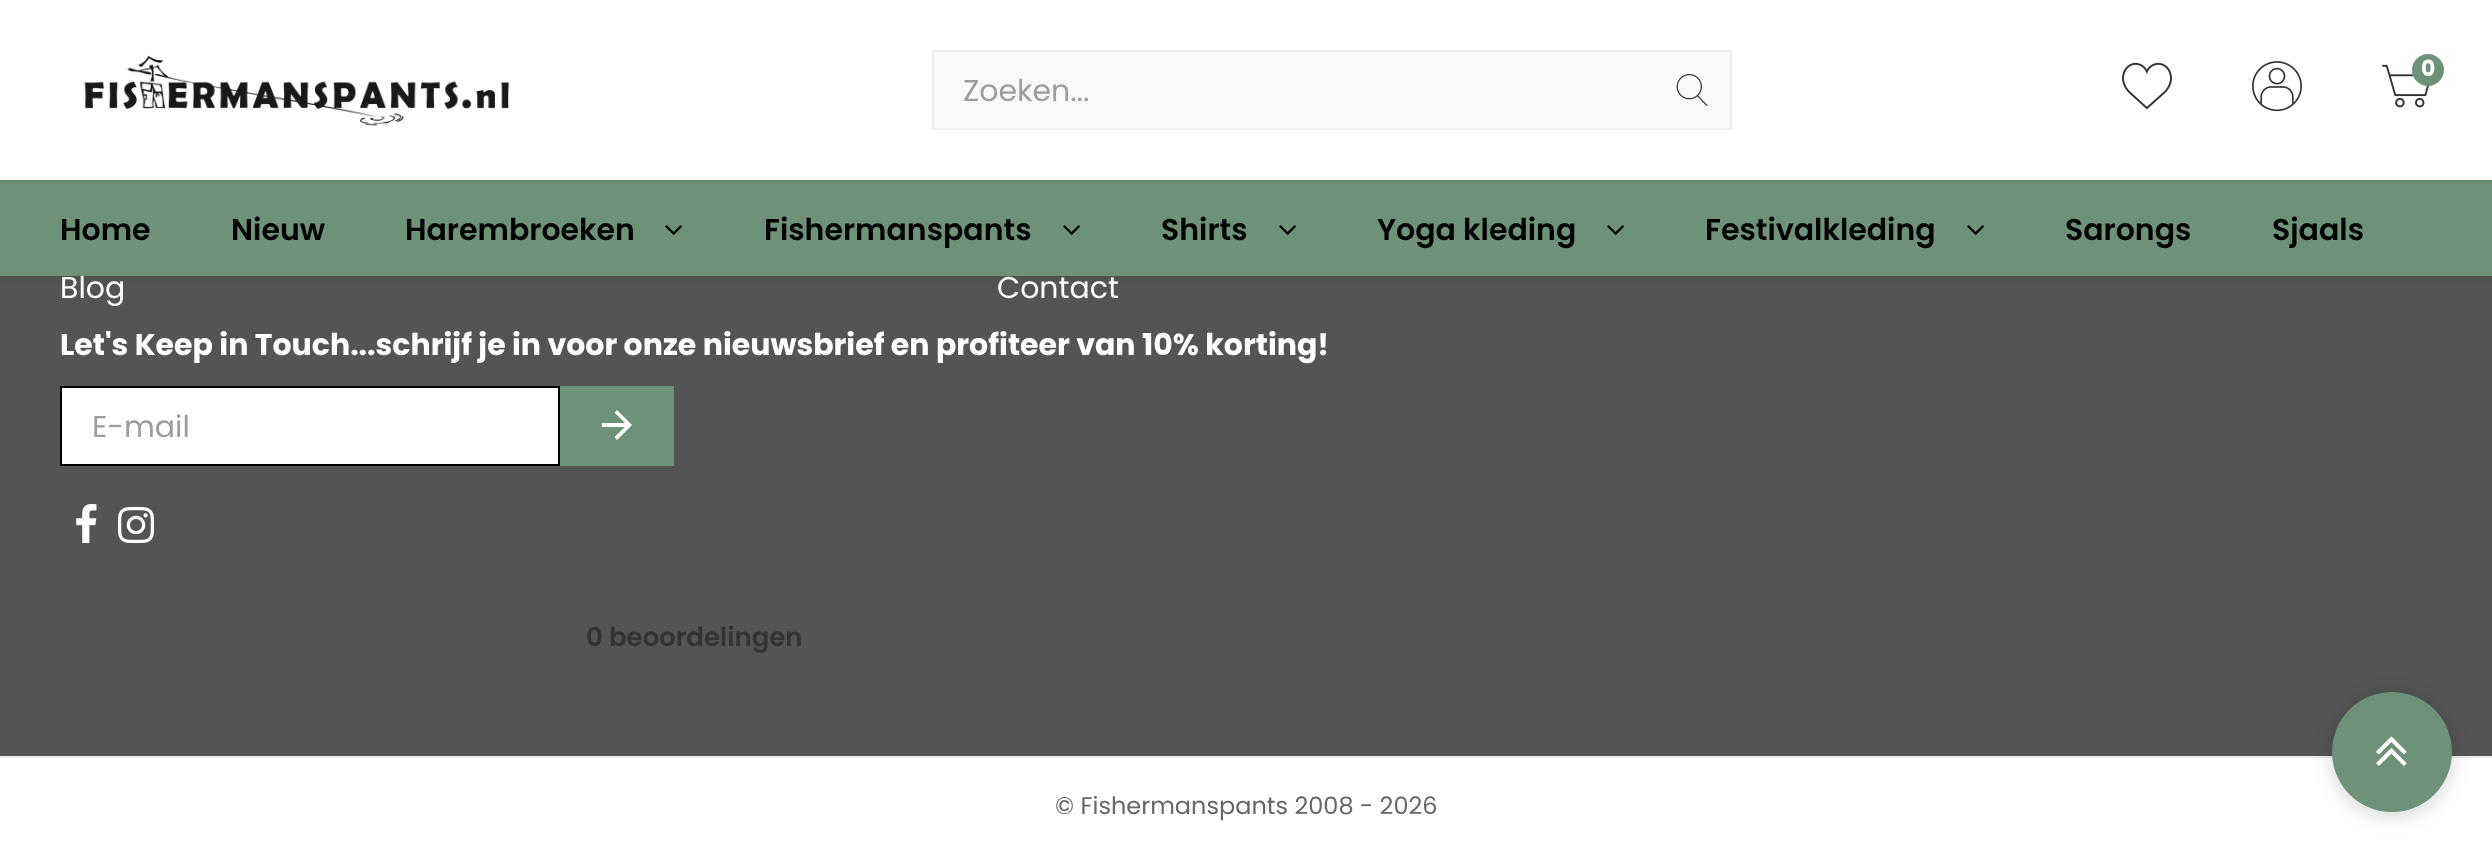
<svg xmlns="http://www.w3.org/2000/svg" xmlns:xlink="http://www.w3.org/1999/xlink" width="2492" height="852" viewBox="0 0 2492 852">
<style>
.cls-1{font:bold 22px Poppins;fill:#ffffff}
.cls-2{font:30px Poppins;fill:#9d9d9d}
.cls-3{font:30px Poppins;fill:#ffffff}
.cls-4{font:600 30px Poppins;fill:#000000}
.cls-5{font:bold 30px Poppins;fill:#ffffff}
.cls-6{font:600 26px Poppins;fill:#333333}
.cls-7{font:24px Poppins;fill:#666666}
</style>
<rect width="100%" height="100%" fill="#ffffff"/>
<rect fill="#545454" x="0" y="276" width="2492" height="480"/>
<rect fill="#000000" fill-opacity="0.1" filter="blur(5px)" x="0" y="0" width="2492" height="276"/>
<rect fill="#ffffff" x="0" y="0" width="2492" height="180"/>
<image xlink:href="image0.png" x="84" y="55" width="426" height="71"/>
<image xlink:href="image1.png" x="2122" y="62" width="50" height="48"/>
<image xlink:href="image2.png" x="2252" y="61" width="50" height="51"/>
<image xlink:href="image3.png" x="2382" y="64" width="48" height="44"/>
<circle fill="#6e9277" cx="2428" cy="70" r="16"/>
<rect fill="#f9f9f9" stroke="#eeeeee" stroke-width="2" x="933" y="51" width="798" height="78"/>
<image xlink:href="image4.png" x="1676" y="74" width="32" height="32"/>
<rect fill="#66886f" x="0" y="180" width="2492" height="2"/>
<rect fill="#eeeeee" x="0" y="756" width="2492" height="2"/>
<rect fill="#ffffff" stroke="#000000" stroke-width="2" x="61" y="387" width="498" height="78"/>
<rect fill="#6e9277" x="560" y="386" width="114" height="80"/>
<path fill="#ffffff" d="M617 410L614.5 412.5L625 423H602V427H625L614.5 437L617 440L632 425Z"/>
<image xlink:href="image6.png" x="76" y="504" width="21" height="39"/>
<image xlink:href="image7.png" x="118" y="507" width="36" height="36"/>
<rect fill="#000000" fill-opacity="0.16" filter="blur(10px)" x="2332" y="696" width="120" height="120" rx="60"/>
<circle fill="#6e9277" cx="2392" cy="752" r="60"/>
<image xlink:href="image8.png" x="2376" y="736" width="31" height="30"/>
<text class="cls-1" x="2421" y="76">0</text>
<text class="cls-2" x="963" y="101">Zoeken...</text>
<text class="cls-3" x="60" y="298">Blog</text>
<rect fill="#6e9277" x="0" y="182" width="2492" height="94"/>
<text class="cls-4" x="2272" y="240">Sjaals</text>
<text class="cls-4" x="2065" y="240">Sarongs</text>
<image xlink:href="image5.png" x="1967" y="225" width="17" height="10"/>
<text class="cls-4" x="1705" y="240">Festivalkleding</text>
<image xlink:href="image5.png" x="1607" y="225" width="17" height="10"/>
<text class="cls-4" x="1377" y="240">Yoga kleding</text>
<image xlink:href="image5.png" x="1279" y="225" width="17" height="10"/>
<text class="cls-4" x="1161" y="240">Shirts</text>
<image xlink:href="image5.png" x="1063" y="225" width="17" height="10"/>
<text class="cls-4" x="764" y="240">Fishermanspants</text>
<image xlink:href="image5.png" x="665" y="225" width="17" height="10"/>
<text class="cls-4" x="405" y="240">Harembroeken</text>
<text class="cls-4" x="231" y="240">Nieuw</text>
<text class="cls-4" x="60" y="240">Home</text>
<text class="cls-3" x="997" y="298">Contact</text>
<text class="cls-5" x="60" y="355">Let's Keep in Touch...schrijf je in voor onze nieuwsbrief en profiteer van 10% korting!</text>
<text class="cls-2" x="92" y="437">E-mail</text>
<text class="cls-6" x="586" y="646">0 beoordelingen</text>
<text class="cls-7" x="1055" y="814">© Fishermanspants 2008 - 2026</text>
</svg>
